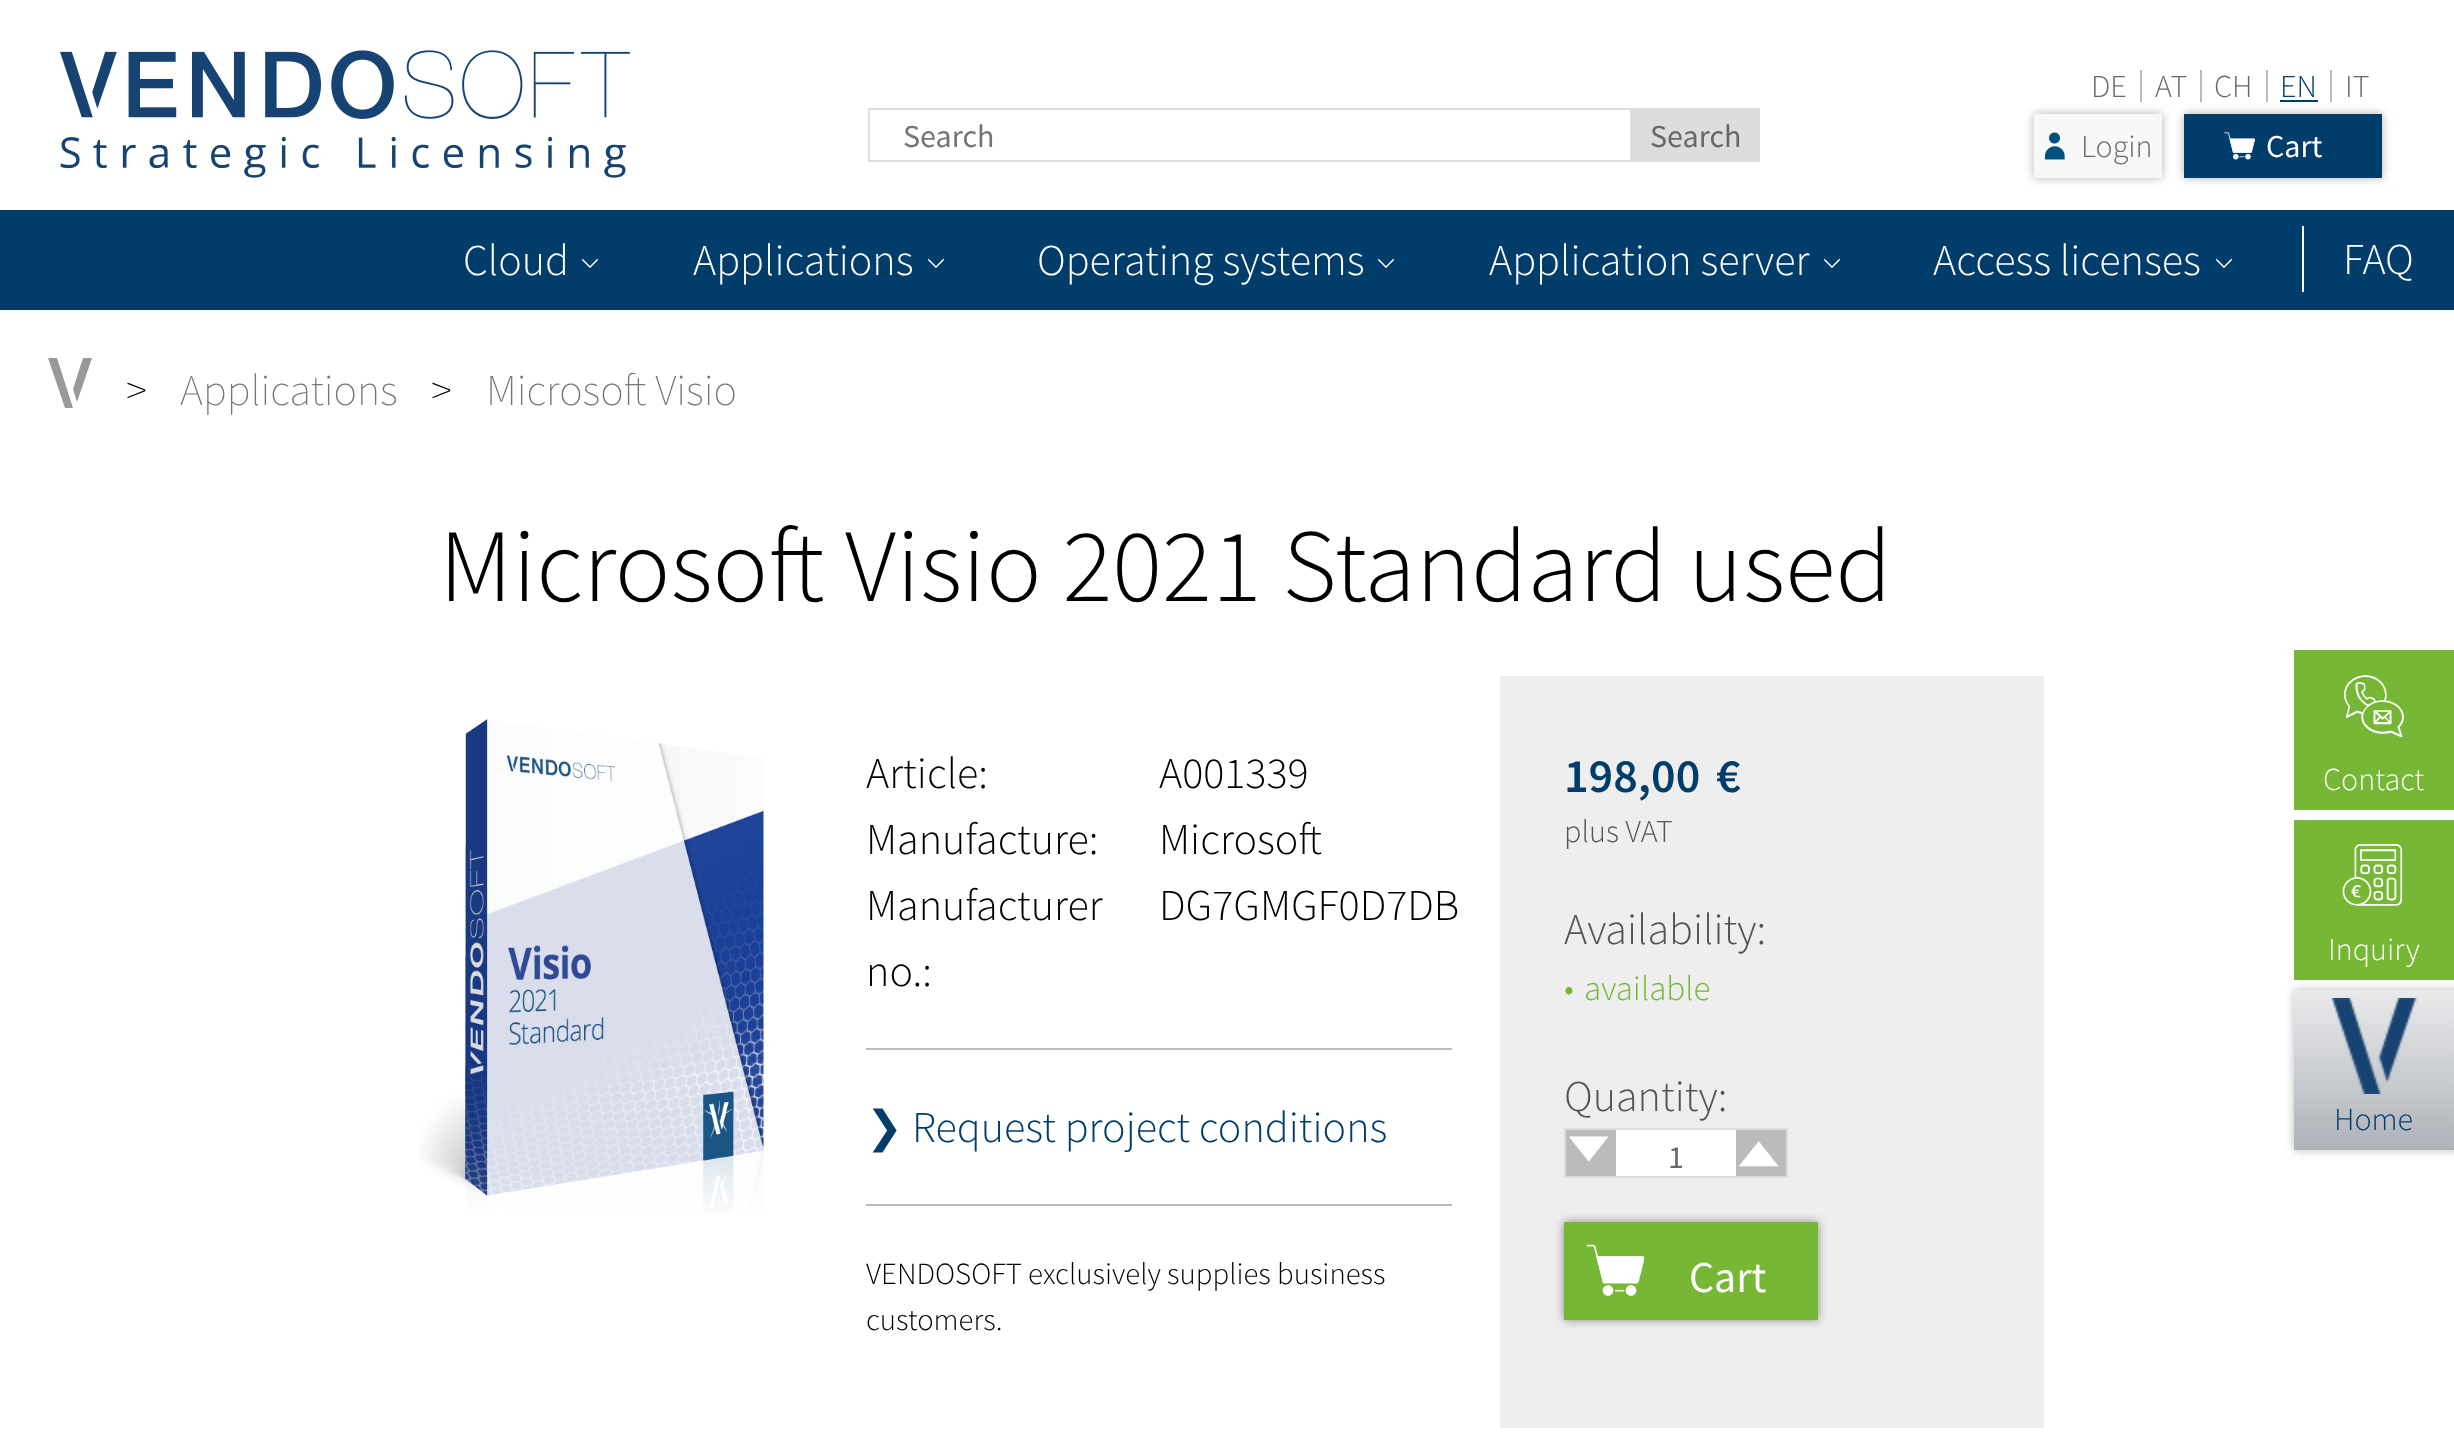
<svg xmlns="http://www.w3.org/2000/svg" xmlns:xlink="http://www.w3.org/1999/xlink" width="2454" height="1442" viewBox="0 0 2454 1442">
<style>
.cls-1{font:32px Source Sans Pro;fill:#757575}
.cls-2{font:32px Source Sans Pro;fill:#686868}
.cls-3{font:300 32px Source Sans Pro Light;fill:#686868}
.cls-4{font:300 32px Source Sans Pro Light;fill:#003d6a}
.cls-5{font:32px Source Sans Pro;fill:#ffffff}
.cls-6{font:300 44px Source Sans Pro Light;fill:#ffffff}
.cls-7{font:300 32px Source Sans Pro Light;fill:#ffffff}
.cls-8{font:200 44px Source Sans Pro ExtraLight;fill:#000000}
.cls-9{font:200 44px Source Sans Pro ExtraLight;fill:#757575}
.cls-10{font:300 104px Source Sans Pro Light;fill:#000000}
.cls-11{font:300 44px Source Sans Pro Light;fill:#000000}
.cls-12{font:44px DejaVu Sans;fill:#003d6a}
.cls-13{font:300 44px Source Sans Pro Light;fill:#003d6a}
.cls-14{font:300 30.75px Source Sans Pro Light;fill:#000000}
.cls-15{font:600 48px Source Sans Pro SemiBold;fill:#003d6a}
.cls-16{font:300 32px Source Sans Pro Light;fill:#545454}
.cls-17{font:300 44px Source Sans Pro Light;fill:#545454}
.cls-18{font:300 35px Source Sans Pro Light;fill:#76b835}
.cls-19{font:bold 79px 'Noto Sans Symbols 2';fill:#ffffff}
.cls-20{font:44px Source Sans Pro;fill:#ffffff}
</style>
<defs>
<linearGradient id="g1" gradientUnits="userSpaceOnUse" x1="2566" y1="1150" x2="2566" y2="990"><stop offset="0" stop-color="#aeb3b9"/><stop offset="1" stop-color="#eaeaec"/></linearGradient>
</defs>
<rect width="100%" height="100%" fill="#ffffff"/>
<image xlink:href="image0.png" x="60" y="50" width="570" height="128"/>
<rect fill="none" stroke="#dddddd" stroke-width="2" x="869" y="109" width="762" height="52"/>
<rect fill="#dddddd" x="1632" y="108" width="128" height="54"/>
<rect fill="#bbbbbb" x="2140" y="70" width="2" height="32"/>
<rect fill="#bbbbbb" x="2200" y="70" width="2" height="32"/>
<rect fill="#bbbbbb" x="2266" y="70" width="2" height="32"/>
<rect fill="#bbbbbb" x="2330" y="70" width="2" height="32"/>
<rect fill="#003d6a" x="2280" y="100" width="38" height="2"/>
<rect fill="#000000" fill-opacity="0.3" filter="blur(5px)" x="2034" y="114" width="128" height="64"/>
<rect fill="#f8f8f8" x="2034" y="114" width="128" height="64"/>
<image xlink:href="image1.png" x="2044" y="132" width="21" height="28"/>
<rect fill="#000000" fill-opacity="0.3" filter="blur(5px)" x="2184" y="114" width="198" height="64"/>
<rect fill="#003d6a" x="2184" y="114" width="198" height="64"/>
<image xlink:href="image2.png" x="2224" y="132" width="31" height="28"/>
<rect fill="#003d6a" x="0" y="210" width="2454" height="100"/>
<image xlink:href="image3.png" x="581" y="258" width="18" height="10"/>
<image xlink:href="image3.png" x="927" y="258" width="18" height="10"/>
<image xlink:href="image3.png" x="1377" y="258" width="18" height="10"/>
<image xlink:href="image3.png" x="1823" y="258" width="18" height="10"/>
<image xlink:href="image3.png" x="2215" y="258" width="18" height="10"/>
<rect fill="#ffffff" x="2302" y="226" width="2" height="66"/>
<rect fill="#76b835" x="2294" y="650" width="160" height="160"/>
<image xlink:href="image4.png" x="2344" y="675" width="60" height="63"/>
<rect fill="#76b835" x="2294" y="820" width="160" height="160"/>
<image xlink:href="image5.png" x="2342" y="844" width="61" height="62"/>
<rect fill="#bbbbbb" filter="blur(5px)" x="2294" y="990" width="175" height="160"/>
<rect fill="url(#g1)" x="2294" y="990" width="160" height="160"/>
<image xlink:href="image6.png" x="2331" y="998" width="86" height="96"/>
<path fill="#999999" d="M92 358H83L73 389L77 402ZM57 358H48L65 408H73Z"/>
<image xlink:href="image7.png" x="420" y="719" width="344" height="494"/>
<rect fill="#bbbbbb" x="866" y="1048" width="586" height="2"/>
<rect fill="#bbbbbb" x="866" y="1204" width="586" height="2"/>
<rect fill="#eeeeee" x="1500" y="676" width="544" height="752"/>
<rect fill="#ffffff" x="1616" y="1130" width="120" height="46"/>
<rect fill="none" stroke="#dcdcdc" stroke-width="2" x="1565" y="1129" width="222" height="48"/>
<rect fill="#bbbbbb" x="1566" y="1130" width="50" height="46"/>
<rect fill="#bbbbbb" x="1736" y="1130" width="50" height="46"/>
<rect fill="#888888" filter="blur(5px)" x="1564" y="1222" width="254" height="98"/>
<rect fill="#76b835" x="1564" y="1222" width="254" height="98"/>
<image xlink:href="image8.png" x="1586" y="1244" width="58" height="52"/>
<text class="cls-1" x="903" y="147">Search</text>
<text class="cls-2" x="1650" y="147">Search</text>
<text class="cls-3" x="2091" y="97">DE</text>
<text class="cls-3" x="2155" y="97">AT</text>
<text class="cls-3" x="2214" y="97">CH</text>
<text class="cls-4" x="2280" y="97">EN</text>
<text class="cls-3" x="2345" y="97">IT</text>
<text class="cls-3" x="2081" y="157">Login</text>
<text class="cls-5" x="2266" y="157">Cart</text>
<text class="cls-6" x="463" y="275">Cloud</text>
<text class="cls-6" x="693" y="275">Applications</text>
<text class="cls-6" x="1037" y="275">Operating systems</text>
<text class="cls-6" x="1489" y="275">Application server</text>
<text class="cls-6" x="1933" y="275">Access licenses</text>
<text class="cls-6" x="2343" y="274">FAQ</text>
<text class="cls-7" x="2323" y="790">Contact</text>
<text class="cls-7" x="2328" y="960">Inquiry</text>
<text class="cls-4" x="2334" y="1130">Home</text>
<text class="cls-8" x="126" y="405">&gt;</text>
<text class="cls-9" x="180" y="405">Applications</text>
<text class="cls-8" x="431" y="405">&gt;</text>
<text class="cls-9" x="486" y="405">Microsoft Visio</text>
<text class="cls-10" x="439" y="601">Microsoft Visio 2021 Standard used</text>
<text class="cls-11" x="866" y="788">Article:</text>
<text class="cls-11" x="1159" y="788">A001339</text>
<text class="cls-11" x="866" y="854">Manufacture:</text>
<text class="cls-11" x="1159" y="854">Microsoft</text>
<text class="cls-11"><tspan x="866" y="920">Manufacturer</tspan><tspan x="866" y="986">no.:</tspan></text>
<text class="cls-11" x="1159" y="920">DG7GMGF0D7DB</text>
<text class="cls-12" x="866" y="1142">❯</text>
<text class="cls-13" x="912" y="1142">Request project conditions</text>
<text class="cls-14"><tspan x="866" y="1284">VENDOSOFT exclusively supplies business</tspan><tspan x="866" y="1330">customers.</tspan></text>
<text class="cls-15" x="1564" y="792">198,00</text>
<text class="cls-15" x="1716" y="792">€</text>
<text class="cls-16" x="1564" y="842">plus VAT</text>
<text class="cls-17" x="1564" y="944">Availability:</text>
<text class="cls-18" x="1564" y="1000">•</text>
<text class="cls-18" x="1584" y="1000">available</text>
<text class="cls-17" x="1564" y="1111">Quantity:</text>
<text class="cls-19" x="1566" y="1209">🢓</text>
<text class="cls-2" x="1668" y="1168">1</text>
<text class="cls-19" x="1736" y="1143">🢑</text>
<text class="cls-20" x="1689" y="1292">Cart</text>
</svg>
